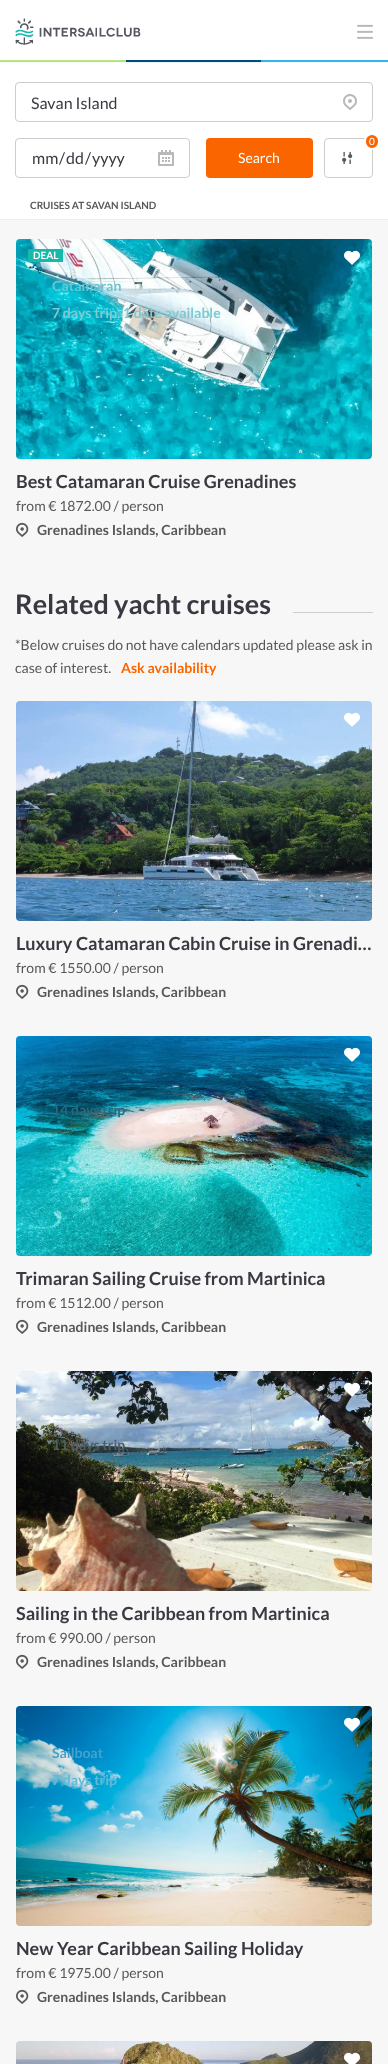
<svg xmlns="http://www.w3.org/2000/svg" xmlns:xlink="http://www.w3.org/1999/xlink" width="388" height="2064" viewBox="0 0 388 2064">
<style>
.cls-1{font:16px Lato;fill:#393942}
.cls-2{font:14px Lato;fill:#ffffff}
.cls-3{font:10px Lato;fill:#ffffff}
.cls-4{font:bold 10px Lato;fill:#5a5759}
.cls-5{font:bold 10px Lato;fill:#ffffff}
.cls-6{font:bold 14px Lato;fill:#66c6d3}
.cls-7{font:bold 14px Lato;fill:#7fc9d3}
.cls-8{font:bold 18px Lato;fill:#393942}
.cls-9{font:14px Lato;fill:#5a5759}
.cls-10{font:bold 14px Lato;fill:#5a5759}
.cls-11{font:bold 27px Lato;fill:#393942}
.cls-12{font:bold 14px Lato;fill:#fa6500}
.cls-13{font:bold 14px Lato;fill:#216c80}
.cls-14{font:bold 14px Lato;fill:#4f5e60}
.cls-15{font:bold 14px Lato;fill:#44a2cc}
.cls-16{font:bold 14px Lato;fill:#60bbd8}
</style>
<rect width="100%" height="100%" fill="#ffffff"/>
<image xlink:href="image0.png" x="15" y="18" width="126" height="27"/>
<image xlink:href="image1.png" x="357" y="24" width="16" height="15"/>
<image xlink:href="image2.png" x="0" y="60" width="388" height="3"/>
<rect fill="none" stroke="#cecdc9" x="15.5" y="82.5" width="357" height="39" rx="3.5"/>
<image xlink:href="image3.png" x="343" y="94" width="14" height="16"/>
<rect fill="none" stroke="#cecdc9" x="15.5" y="138.5" width="174" height="39" rx="3.5"/>
<image xlink:href="image4.png" x="158" y="150" width="16" height="16"/>
<rect fill="#fa6500" x="206" y="138" width="107" height="40" rx="4"/>
<rect fill="none" stroke="#cecdc9" x="324.5" y="138.5" width="48" height="39" rx="3.5"/>
<rect fill="#fa6500" stroke="#ffffff" stroke-width="2" x="365" y="134" width="14" height="15" rx="7"/>
<image xlink:href="image5.png" x="342" y="151" width="11" height="13"/>
<rect fill="#f8f7f7" x="0" y="220" width="388" height="1844"/>
<rect fill="#f5ece5" x="0" y="219" width="388" height="1"/>
<image xlink:href="image7.png" x="16" y="239" width="356" height="220"/>
<path fill="#17b9ab" d="M30 249H63V262H30C29 262 28 261 28 260V251C28 250 29 249 30 249Z"/>
<image xlink:href="image6.png" x="344" y="250" width="16" height="15"/>
<image xlink:href="image8.png" x="16" y="522" width="13" height="15"/>
<rect fill="#cecdc9" x="293" y="612" width="80" height="1"/>
<image xlink:href="image9.png" x="16" y="701" width="356" height="220"/>
<image xlink:href="image10.png" x="344" y="712" width="16" height="15"/>
<image xlink:href="image8.png" x="16" y="984" width="13" height="15"/>
<image xlink:href="image12.png" x="16" y="1036" width="356" height="220"/>
<image xlink:href="image11.png" x="344" y="1047" width="16" height="15"/>
<image xlink:href="image8.png" x="16" y="1319" width="13" height="15"/>
<image xlink:href="image14.png" x="16" y="1371" width="356" height="220"/>
<image xlink:href="image13.png" x="344" y="1382" width="16" height="15"/>
<image xlink:href="image8.png" x="16" y="1654" width="13" height="15"/>
<image xlink:href="image16.png" x="16" y="1706" width="356" height="220"/>
<image xlink:href="image15.png" x="344" y="1717" width="16" height="15"/>
<image xlink:href="image8.png" x="16" y="1989" width="13" height="15"/>
<image xlink:href="image17.png" x="16" y="2041" width="356" height="23"/>
<image xlink:href="image18.png" x="344" y="2052" width="16" height="12"/>
<text class="cls-1" x="31" y="109">Savan Island</text>
<text class="cls-1" x="32" y="164">mm</text>
<text class="cls-1" x="59" y="164">/</text>
<text class="cls-1" x="66" y="164">dd</text>
<text class="cls-1" x="85" y="164">/</text>
<text class="cls-1" x="92" y="164">yyyy</text>
<text class="cls-2" x="238" y="163">Search</text>
<text class="cls-3" x="369" y="145">0</text>
<text class="cls-4" x="30" y="209">CRUISES AT SAVAN ISLAND</text>
<text class="cls-5" x="33" y="259">DEAL</text>
<text class="cls-6" x="52" y="291">Catamaran</text>
<text class="cls-7" x="52" y="318">7 days trip, 1 date available</text>
<text class="cls-8" x="16" y="488">Best Catamaran Cruise Grenadines</text>
<text class="cls-9" x="16" y="511">from € 1872.00 / person</text>
<text class="cls-10" x="37" y="535">Grenadines Islands, Caribbean</text>
<text class="cls-11" x="15" y="614">Related yacht cruises</text>
<text class="cls-9"><tspan x="15" y="650">*Below cruises do not have calendars updated please ask in</tspan><tspan x="15" y="673">case of interest.</tspan></text>
<text class="cls-12" x="121" y="673">Ask availability</text>
<text class="cls-8" x="16" y="950">Luxury Catamaran Cabin Cruise in Grenadi…</text>
<text class="cls-9" x="16" y="973">from € 1550.00 / person</text>
<text class="cls-10" x="37" y="997">Grenadines Islands, Caribbean</text>
<text class="cls-13" x="52" y="1115">14 days trip</text>
<text class="cls-8" x="16" y="1285">Trimaran Sailing Cruise from Martinica</text>
<text class="cls-9" x="16" y="1308">from € 1512.00 / person</text>
<text class="cls-10" x="37" y="1332">Grenadines Islands, Caribbean</text>
<text class="cls-14" x="52" y="1450">11 days trip</text>
<text class="cls-8" x="16" y="1620">Sailing in the Caribbean from Martinica</text>
<text class="cls-9" x="16" y="1643">from € 990.00 / person</text>
<text class="cls-10" x="37" y="1667">Grenadines Islands, Caribbean</text>
<text class="cls-15" x="52" y="1758">Sailboat</text>
<text class="cls-16" x="52" y="1785">7 days trip</text>
<text class="cls-8" x="16" y="1955">New Year Caribbean Sailing Holiday</text>
<text class="cls-9" x="16" y="1978">from € 1975.00 / person</text>
<text class="cls-10" x="37" y="2002">Grenadines Islands, Caribbean</text>
</svg>
